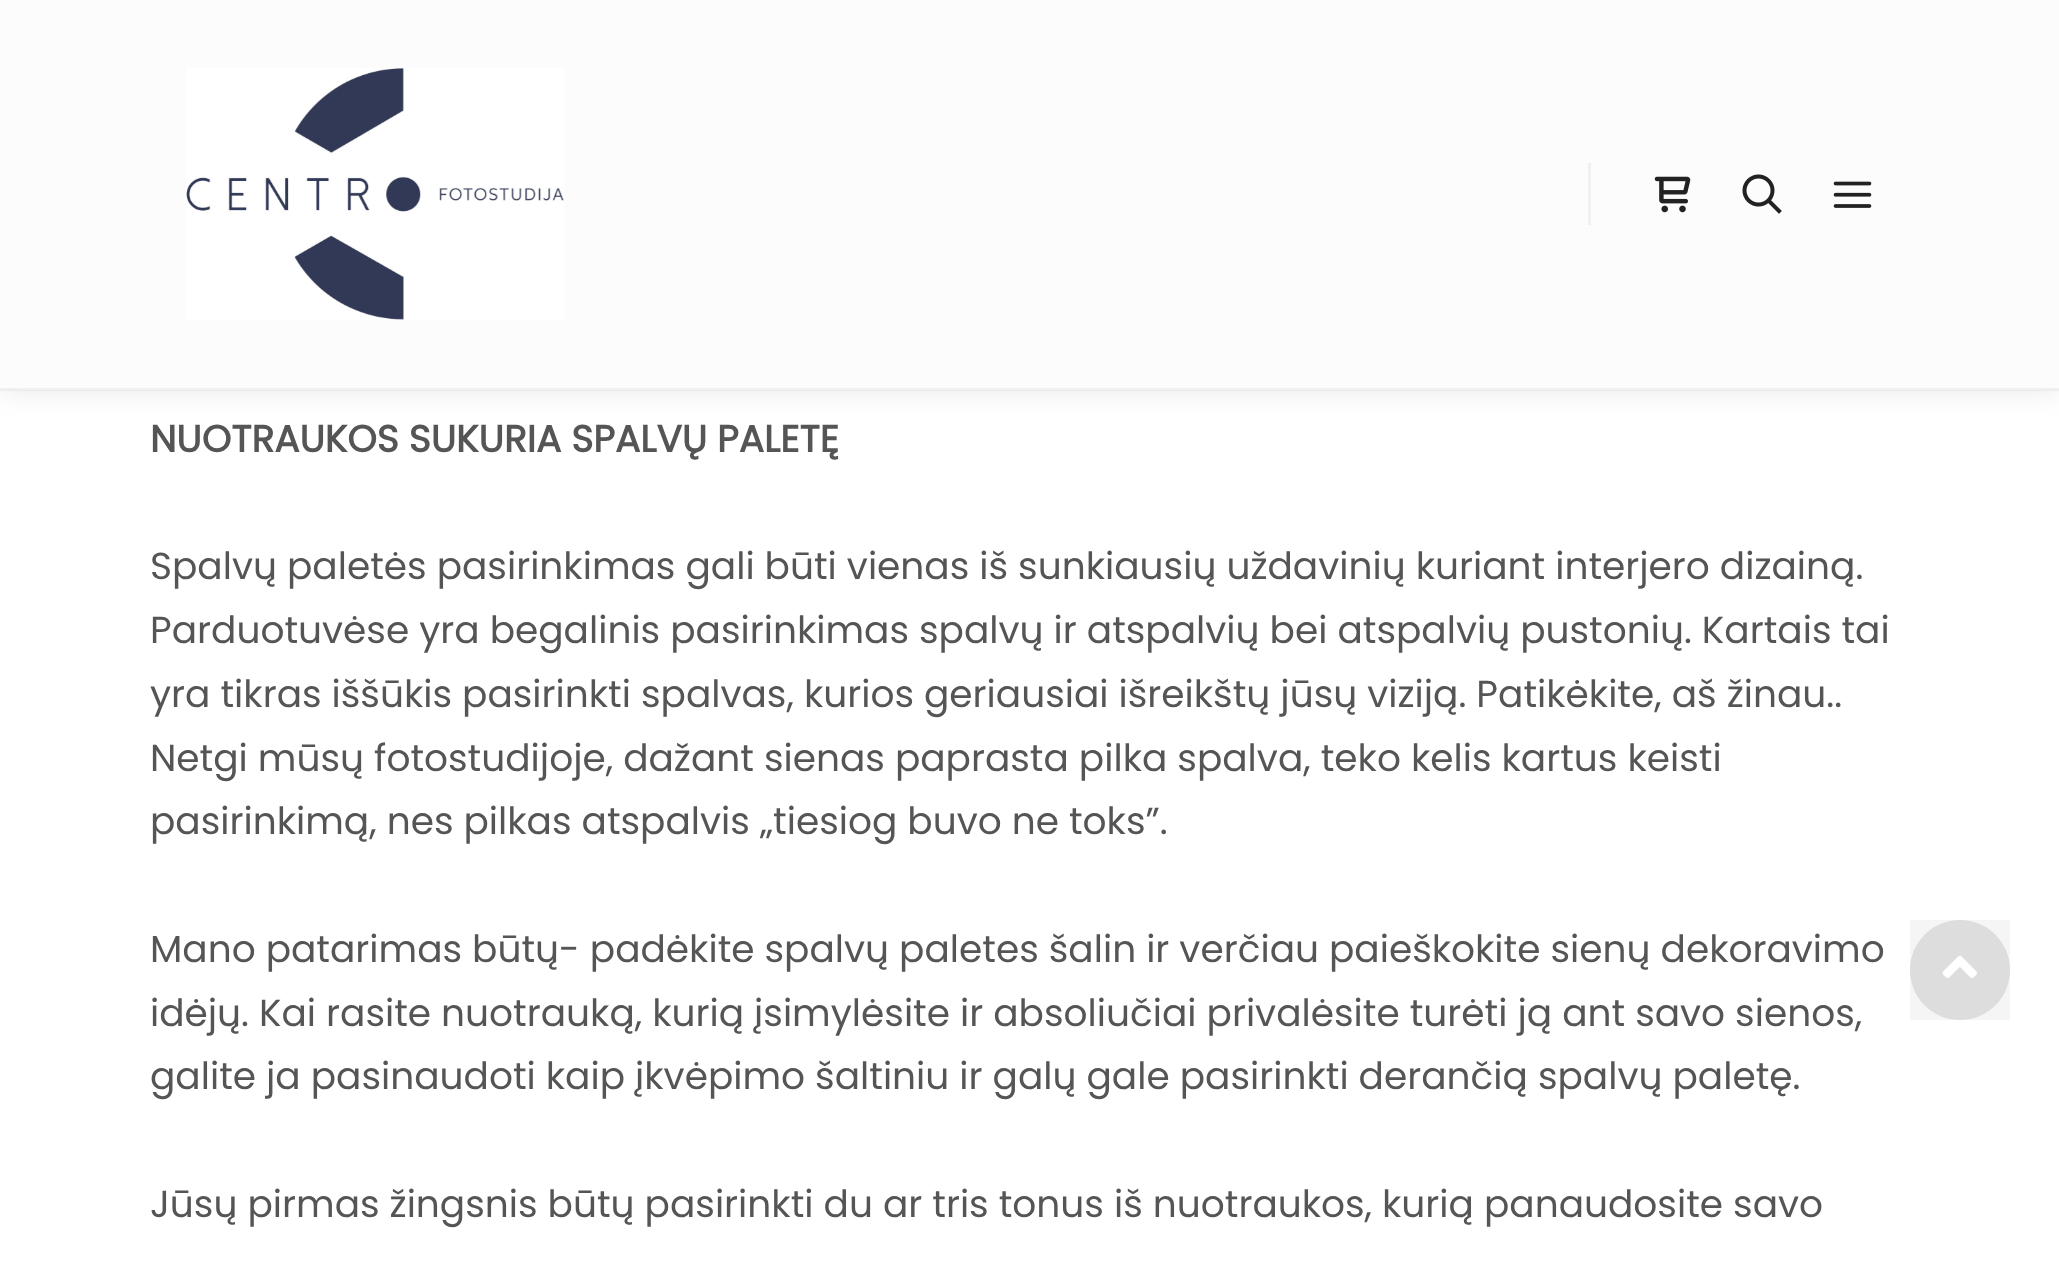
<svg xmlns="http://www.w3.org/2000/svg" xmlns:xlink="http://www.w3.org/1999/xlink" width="2059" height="1270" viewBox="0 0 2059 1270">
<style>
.cls-1{font:bold 37.5px Poppins;fill:#555555}
.cls-2{font:37.5px Poppins;fill:#555555}
</style>
<rect width="100%" height="100%" fill="#ffffff"/>
<rect fill="#000000" fill-opacity="0.09" filter="blur(15px)" x="0" y="0" width="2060" height="390"/>
<rect fill="#fcfcfc" x="0" y="0" width="2059" height="390"/>
<rect fill="#3a3a3a" fill-opacity="0.06" x="0" y="388" width="2059" height="3"/>
<image xlink:href="image0.png" x="186" y="68" width="378" height="252"/>
<rect fill="#f0f0f0" x="1588" y="163" width="3" height="62"/>
<image xlink:href="image1.png" x="1654" y="176" width="37" height="37"/>
<image xlink:href="image2.png" x="1742" y="174" width="40" height="40"/>
<image xlink:href="image3.png" x="1833" y="181" width="39" height="27"/>
<circle fill="#e6e6e6" cx="1960" cy="970" r="50"/>
<rect fill="#000000" fill-opacity="0.04" x="1910" y="920" width="100" height="100"/>
<image xlink:href="image4.png" x="1942" y="955" width="35" height="23"/>
<text class="cls-1" x="150" y="452">NUOTRAUKOS SUKURIA SPALVŲ PALETĘ</text>
<text class="cls-2"><tspan x="150" y="579">Spalvų paletės pasirinkimas gali būti vienas iš sunkiausių uždavinių kuriant interjero dizainą.</tspan><tspan x="150" y="643">Parduotuvėse yra begalinis pasirinkimas spalvų ir atspalvių bei atspalvių pustonių. Kartais tai</tspan><tspan x="150" y="707">yra tikras iššūkis pasirinkti spalvas, kurios geriausiai išreikštų jūsų viziją. Patikėkite, aš žinau..</tspan><tspan x="150" y="771">Netgi mūsų fotostudijoje, dažant sienas paprasta pilka spalva, teko kelis kartus keisti</tspan><tspan x="150" y="834">pasirinkimą, nes pilkas atspalvis „tiesiog buvo ne toks”.</tspan></text>
<text class="cls-2"><tspan x="150" y="962">Mano patarimas būtų- padėkite spalvų paletes šalin ir verčiau paieškokite sienų dekoravimo</tspan><tspan x="150" y="1026">idėjų. Kai rasite nuotrauką, kurią įsimylėsite ir absoliučiai privalėsite turėti ją ant savo sienos,</tspan><tspan x="150" y="1089">galite ja pasinaudoti kaip įkvėpimo šaltiniu ir galų gale pasirinkti derančią spalvų paletę.</tspan></text>
<text class="cls-2" x="150" y="1217">Jūsų pirmas žingsnis būtų pasirinkti du ar tris tonus iš nuotraukos, kurią panaudosite savo</text>
</svg>
